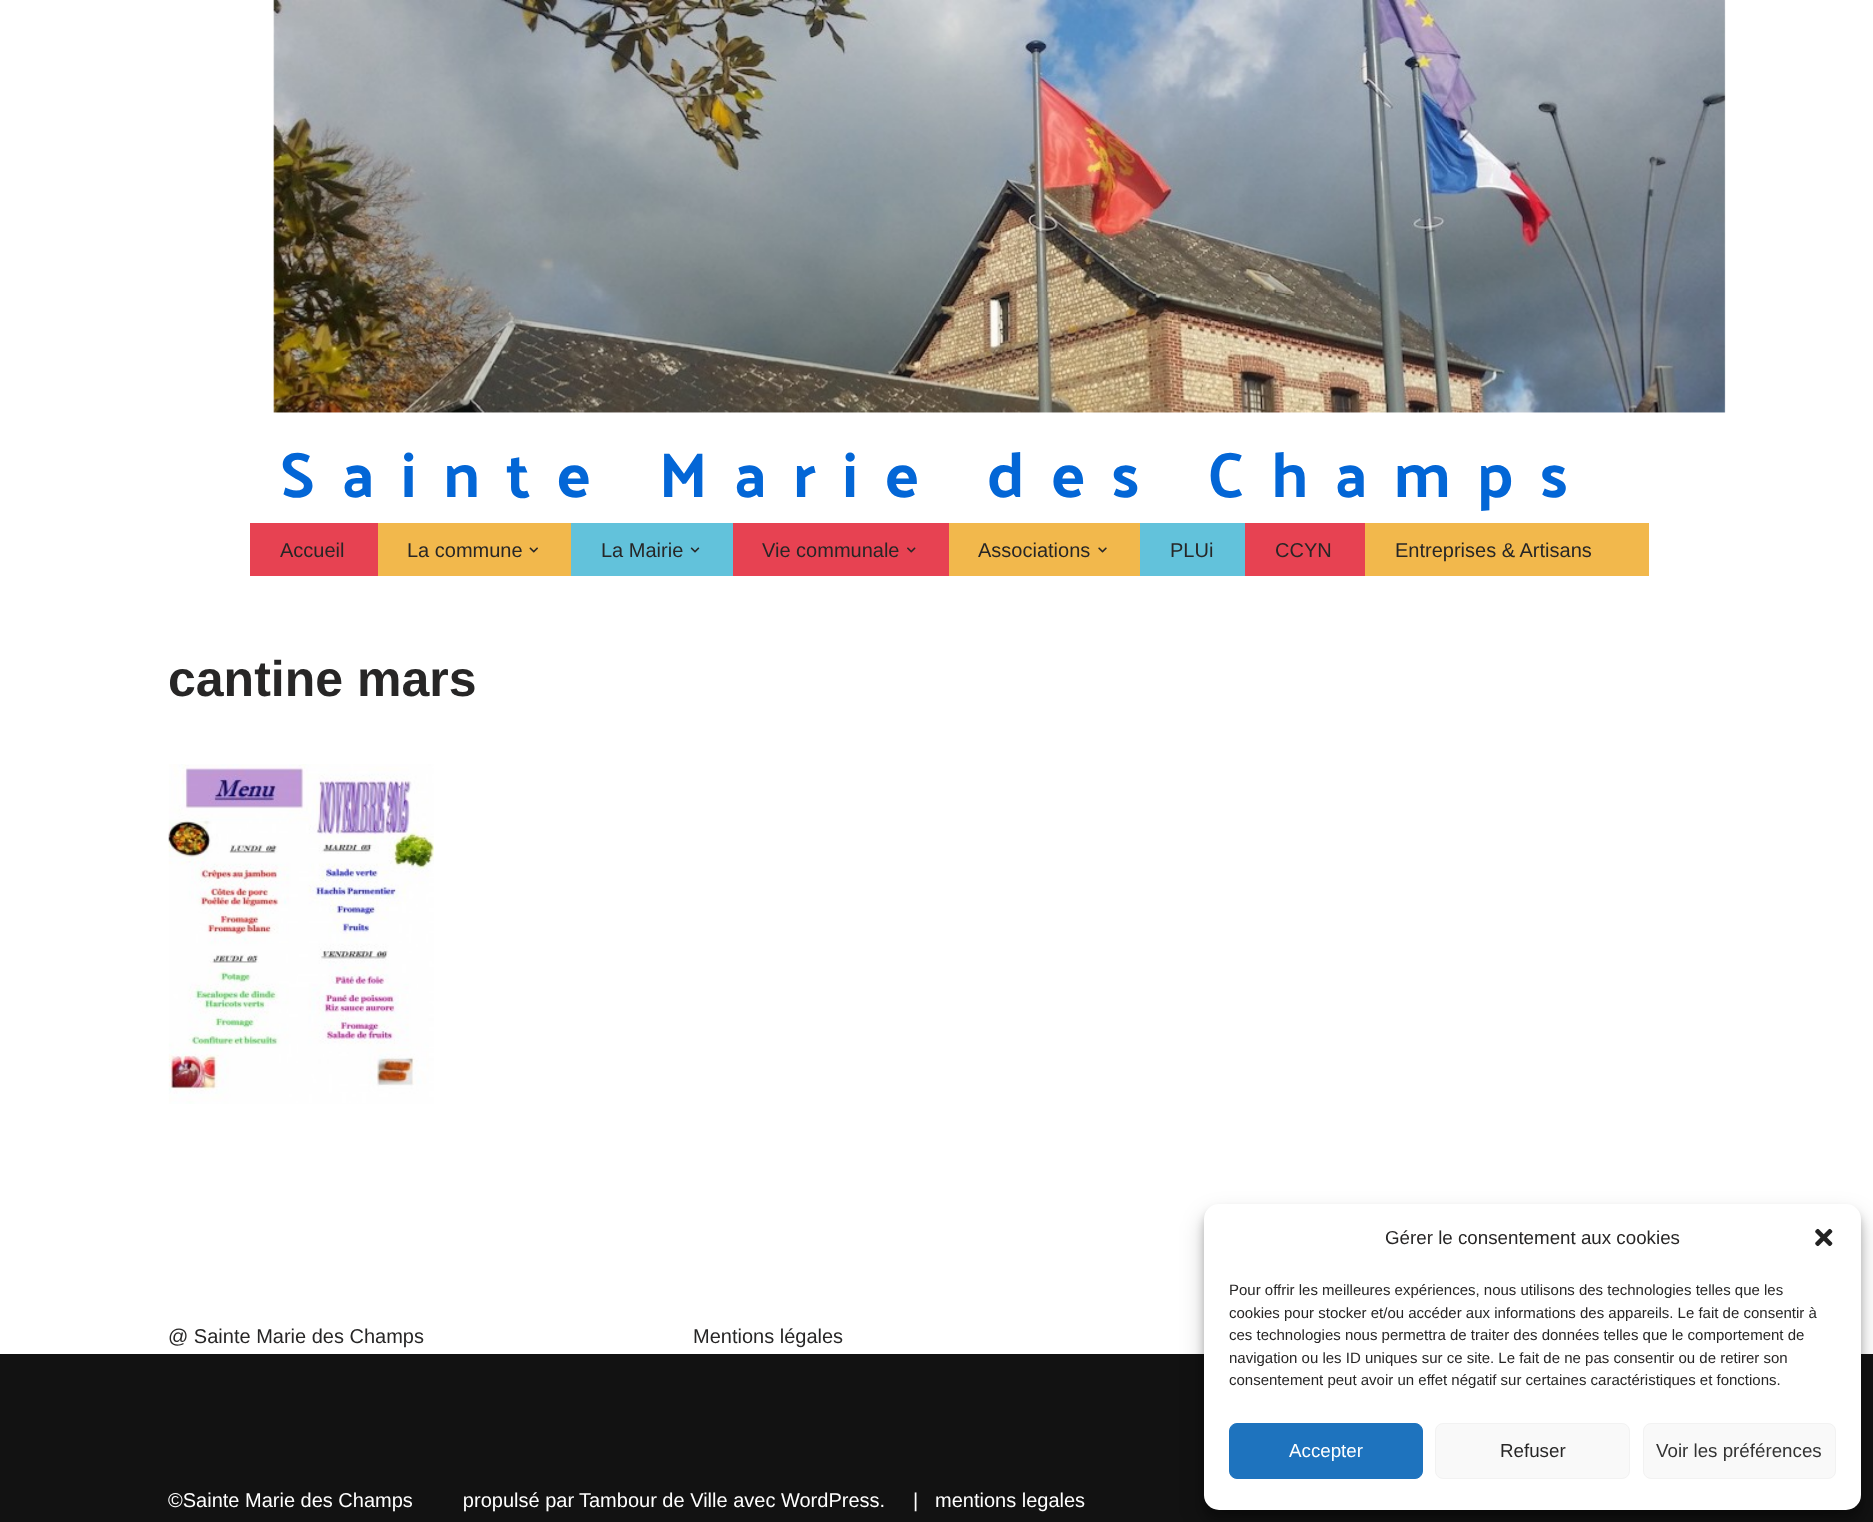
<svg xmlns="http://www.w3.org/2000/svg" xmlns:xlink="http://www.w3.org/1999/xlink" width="1873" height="1522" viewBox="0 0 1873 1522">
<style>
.cls-1{font:bold 63.75px Palanquin;letter-spacing:26.25px;fill:#0366d6}
.cls-2{font:20px Liberation Sans;fill:#272626}
.cls-3{font:bold 50px Liberation Sans;fill:#272626}
.cls-4{font:20px Liberation Sans;fill:#ffffff}
.cls-5{font:18.75px Liberation Sans;fill:#272626}
.cls-6{font:15px Liberation Sans;fill:#272626}
.cls-7{font:18.75px Liberation Sans;fill:#ffffff}
.cls-8{font:18.75px Liberation Sans;fill:#333333}
</style>
<rect width="100%" height="100%" fill="#ffffff"/>
<image xlink:href="image0.png" x="273" y="0" width="1453" height="413"/>
<rect fill="#e74252" x="250" y="523" width="128" height="53"/>
<rect fill="#f2b84c" x="378" y="523" width="193" height="53"/>
<image xlink:href="image1.png" x="529" y="547" width="9" height="6"/>
<rect fill="#62c2db" x="571" y="523" width="162" height="53"/>
<image xlink:href="image2.png" x="690" y="547" width="10" height="6"/>
<rect fill="#e74252" x="733" y="523" width="216" height="53"/>
<image xlink:href="image3.png" x="907" y="547" width="9" height="6"/>
<rect fill="#f2b84c" x="949" y="523" width="191" height="53"/>
<image xlink:href="image4.png" x="1098" y="547" width="9" height="6"/>
<rect fill="#62c2db" x="1140" y="523" width="105" height="53"/>
<rect fill="#e74252" x="1245" y="523" width="120" height="53"/>
<rect fill="#f2b84c" x="1365" y="523" width="284" height="53"/>
<image xlink:href="image5.png" x="168" y="764" width="266" height="340"/>
<rect fill="#121212" x="0" y="1354" width="1873" height="168"/>
<rect fill="#000000" fill-opacity="0.23" filter="blur(4px)" x="1204" y="1211" width="657" height="307" rx="15"/>
<rect fill="#000000" fill-opacity="0.19" filter="blur(12.5px)" x="1204" y="1216" width="657" height="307" rx="15"/>
<rect fill="#ffffff" x="1204" y="1204" width="657" height="306" rx="15"/>
<image xlink:href="image6.png" x="1815" y="1228" width="18" height="19"/>
<rect fill="#1e73be" stroke="#1e73be" x="1229.5" y="1423.5" width="193" height="55" rx="7.5"/>
<rect fill="#f9f9f9" stroke="#f2f2f2" x="1435.5" y="1423.5" width="194" height="55" rx="7.5"/>
<rect fill="#f9f9f9" stroke="#f2f2f2" x="1643.5" y="1423.5" width="192" height="55" rx="7.5"/>
<text class="cls-1" x="280" y="497">Sainte Marie des Champs</text>
<text class="cls-2" x="280" y="557">Accueil</text>
<text class="cls-2" x="407" y="557">La commune</text>
<text class="cls-2" x="601" y="557">La Mairie</text>
<text class="cls-2" x="762" y="557">Vie communale</text>
<text class="cls-2" x="978" y="557">Associations</text>
<text class="cls-2" x="1170" y="557">PLUi</text>
<text class="cls-2" x="1275" y="557">CCYN</text>
<text class="cls-2" x="1395" y="557">Entreprises &amp; Artisans</text>
<text class="cls-3" x="168" y="696">cantine mars</text>
<text class="cls-2" x="168" y="1343">@ Sainte Marie des Champs</text>
<text class="cls-2" x="693" y="1343">Mentions légales</text>
<text class="cls-4" xml:space="preserve" x="168" y="1507">©Sainte Marie des Champs         propulsé par</text>
<text class="cls-4" x="579" y="1507">Tambour de Ville avec WordPress.</text>
<text class="cls-4" x="913" y="1507">|</text>
<text class="cls-4" x="935" y="1507">mentions legales</text>
<text class="cls-5" x="1385" y="1244">Gérer le consentement aux cookies</text>
<text class="cls-6"><tspan x="1229" y="1295">Pour offrir les meilleures expériences, nous utilisons des technologies telles que les</tspan><tspan x="1229" y="1318">cookies pour stocker et/ou accéder aux informations des appareils. Le fait de consentir à</tspan><tspan x="1229" y="1340">ces technologies nous permettra de traiter des données telles que le comportement de</tspan><tspan x="1229" y="1363">navigation ou les ID uniques sur ce site. Le fait de ne pas consentir ou de retirer son</tspan><tspan x="1229" y="1385">consentement peut avoir un effet négatif sur certaines caractéristiques et fonctions.</tspan></text>
<text class="cls-7" x="1289" y="1457">Accepter</text>
<text class="cls-5" x="1500" y="1457">Refuser</text>
<text class="cls-8" x="1656" y="1457">Voir les préférences</text>
</svg>
